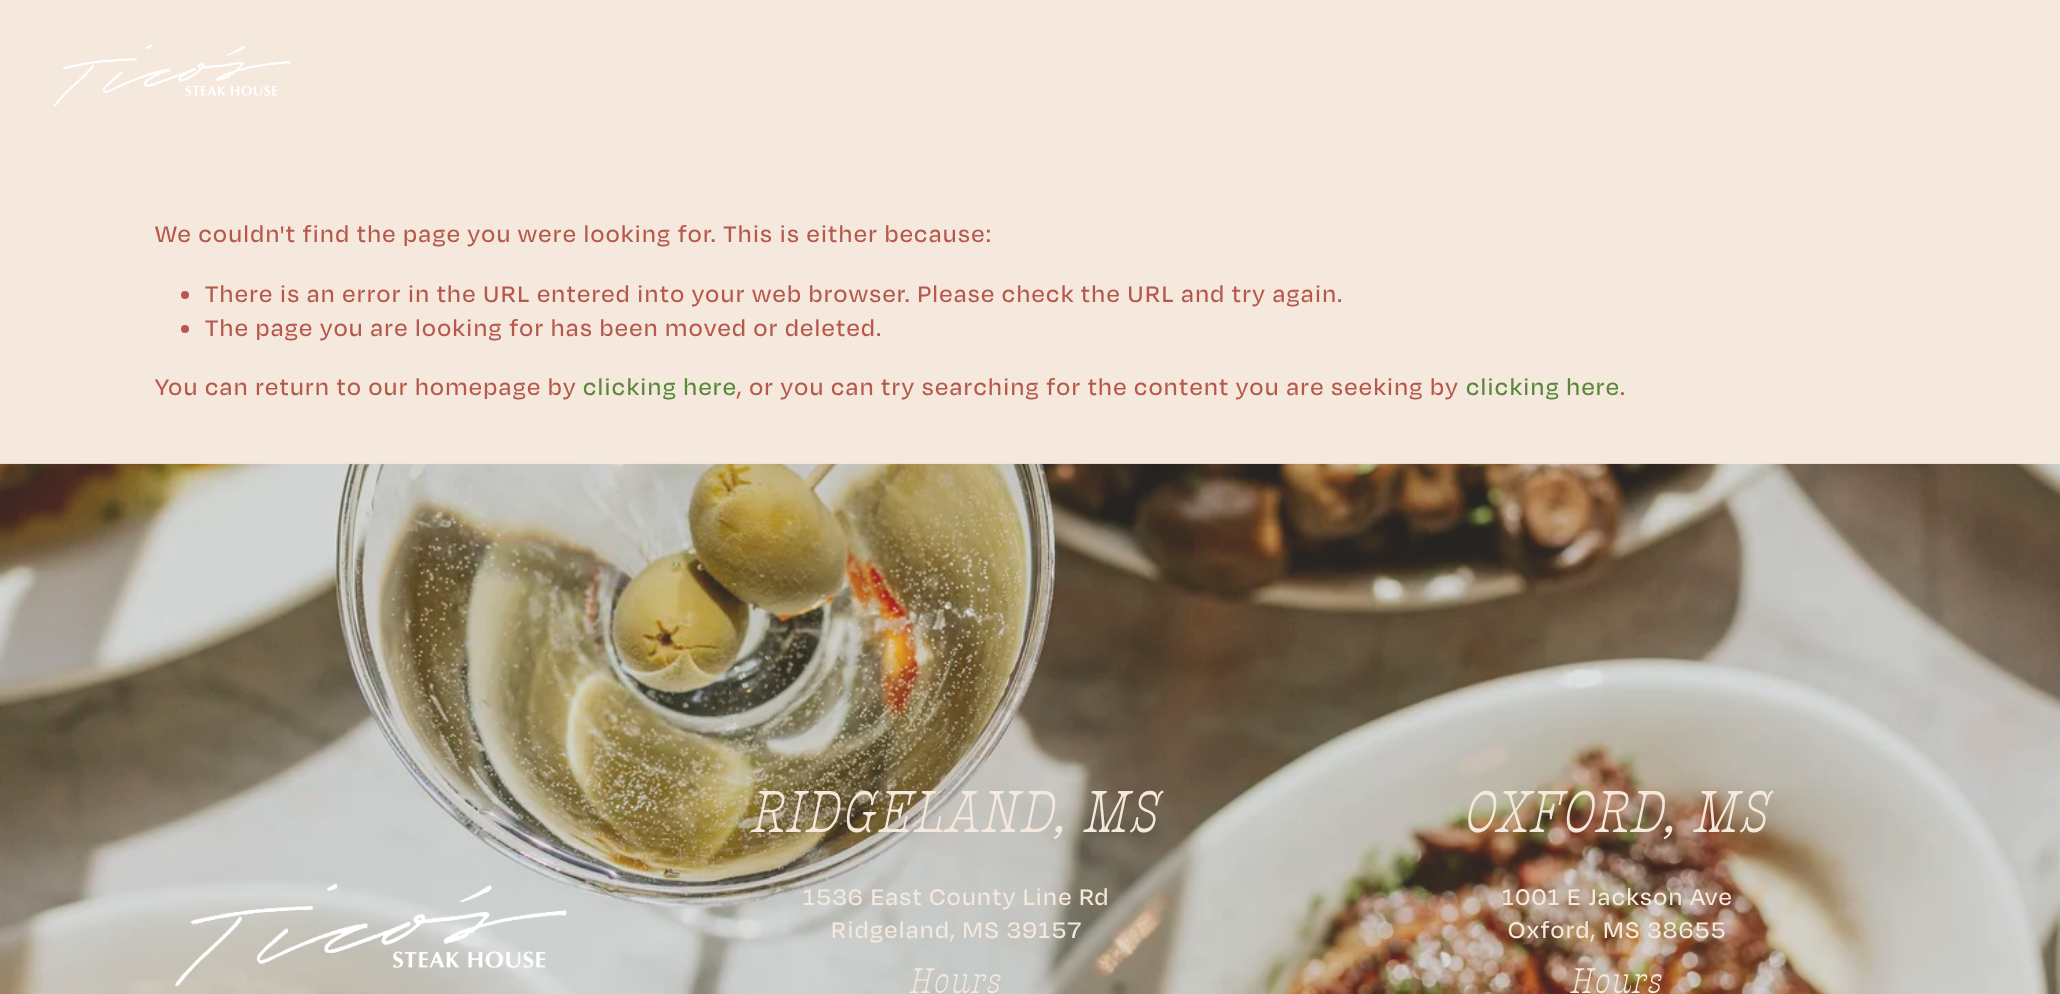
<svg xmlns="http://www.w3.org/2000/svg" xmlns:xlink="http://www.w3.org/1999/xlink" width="2060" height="994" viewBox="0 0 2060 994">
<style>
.cls-1{font:500 26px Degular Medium;letter-spacing:1.3px;fill:#b6594c}
.cls-2{font:500 26px Degular Medium;letter-spacing:1.3px;fill:#5a883a}
.cls-3{font:italic 300 58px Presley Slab;letter-spacing:1.2px;fill:#f5e8dc}
.cls-4{font:500 26px Degular Medium;letter-spacing:1.3px;fill:#f5e8dc}
.cls-5{font:italic 300 35px Presley Slab;letter-spacing:1.3px;fill:#f5e8dc}
</style>
<rect width="100%" height="100%" fill="#f5e8dc"/>
<image xlink:href="image0.png" x="53" y="44" width="238" height="63"/>
<circle fill="#b6594c" cx="185" cy="295" r="4"/>
<circle fill="#b6594c" cx="185" cy="329" r="4"/>
<image xlink:href="image1.png" x="0" y="463" width="2060" height="531"/>
<image xlink:href="image2.png" x="175" y="883" width="392" height="104"/>
<text class="cls-1" x="155" y="242">We couldn't find the page you were looking for. This is either because:</text>
<text class="cls-1"><tspan x="205" y="302">There is an error in the URL entered into your web browser. Please check the URL and try again.</tspan><tspan x="205" y="336">The page you are looking for has been moved or deleted.</tspan></text>
<text class="cls-1" x="155" y="395">You can return to our homepage by</text>
<text class="cls-2" x="583" y="395">clicking here</text>
<text class="cls-1" x="737" y="395">, or you can try searching for the content you are seeking by</text>
<text class="cls-2" x="1466" y="395">clicking here</text>
<text class="cls-1" x="1620" y="395">.</text>
<text class="cls-3" x="752" y="832">RIDGELAND, MS</text>
<text class="cls-4" x="803" y="905">1536 East County Line Rd</text>
<text class="cls-4" x="831" y="938">Ridgeland, MS 39157</text>
<text class="cls-5" x="910" y="993">Hours</text>
<text class="cls-3" x="1464" y="832">OXFORD, MS</text>
<text class="cls-4" x="1502" y="905">1001 E Jackson Ave</text>
<text class="cls-4" x="1508" y="938">Oxford, MS 38655</text>
<text class="cls-5" x="1571" y="993">Hours</text>
</svg>
